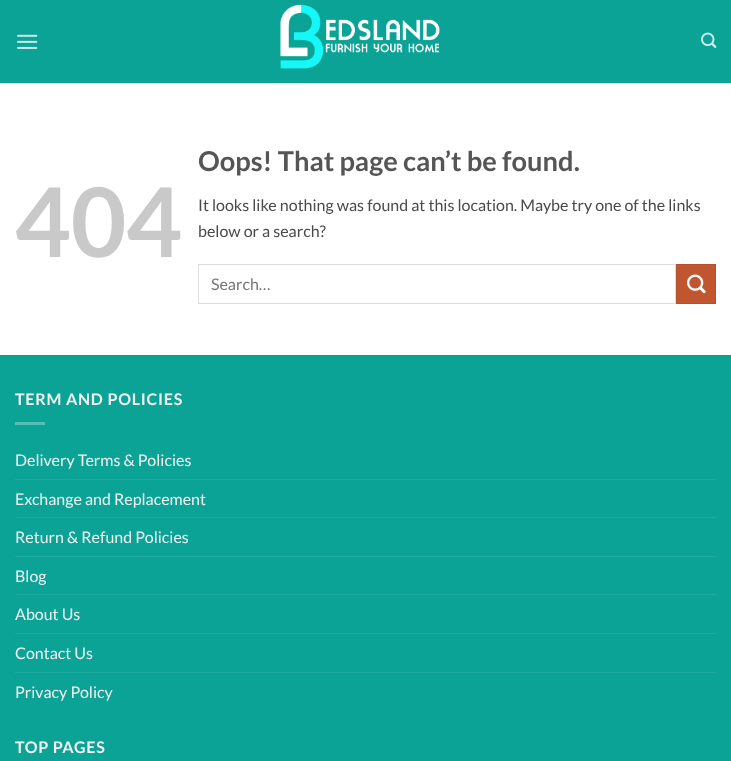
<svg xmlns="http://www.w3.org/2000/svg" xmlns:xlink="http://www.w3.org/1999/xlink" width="731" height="761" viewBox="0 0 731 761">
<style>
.cls-1{font:bold 96px Lato;fill:#c9c9c9}
.cls-2{font:bold 27.25px Lato;fill:#555555}
.cls-3{font:16px Lato;fill:#4a4a4a}
.cls-4{font:16px Lato;fill:#757575}
.cls-5{font:bold 16px Lato;letter-spacing:0.75px;fill:#f1f1f1}
.cls-6{font:16px Lato;fill:#f1f1f1}
</style>
<rect width="100%" height="100%" fill="#ffffff"/>
<rect fill="#0ca397" x="0" y="0" width="731" height="83"/>
<image xlink:href="image0.png" x="17" y="34" width="21" height="15"/>
<image xlink:href="image1.png" x="280" y="4" width="160" height="65"/>
<image xlink:href="image2.png" x="701" y="32" width="16" height="16"/>
<rect fill="none" stroke="#dddddd" x="198.5" y="264.5" width="477" height="39"/>
<rect fill="#c05530" stroke="#b6512e" x="676.5" y="264.5" width="39" height="39"/>
<image xlink:href="image3.png" x="687" y="274" width="19" height="20"/>
<rect fill="#0ca397" x="0" y="356" width="731" height="405"/>
<rect fill="#0b9b8f" x="0" y="355" width="731" height="1"/>
<rect fill="#55bfb6" x="15" y="422" width="30" height="3"/>
<rect fill="#1faa9f" x="15" y="479" width="701" height="1"/>
<rect fill="#1faa9f" x="15" y="517" width="701" height="1"/>
<rect fill="#1faa9f" x="15" y="556" width="701" height="1"/>
<rect fill="#1faa9f" x="15" y="594" width="701" height="1"/>
<rect fill="#1faa9f" x="15" y="633" width="701" height="1"/>
<rect fill="#1faa9f" x="15" y="672" width="701" height="1"/>
<text class="cls-1" x="15" y="257">404</text>
<text class="cls-2" x="198" y="171">Oops! That page can’t be found.</text>
<text class="cls-3"><tspan x="198" y="211">It looks like nothing was found at this location. Maybe try one of the links</tspan><tspan x="198" y="237">below or a search?</tspan></text>
<text class="cls-4" x="211" y="290">Search…</text>
<text class="cls-5" x="15" y="405">TERM AND POLICIES</text>
<text class="cls-6" x="15" y="466">Delivery Terms &amp; Policies</text>
<text class="cls-6" x="15" y="505">Exchange and Replacement</text>
<text class="cls-6" x="15" y="543">Return &amp; Refund Policies</text>
<text class="cls-6" x="15" y="582">Blog</text>
<text class="cls-6" x="15" y="620">About Us</text>
<text class="cls-6" x="15" y="659">Contact Us</text>
<text class="cls-6" x="15" y="698">Privacy Policy</text>
<text class="cls-5" x="15" y="753">TOP PAGES</text>
</svg>
